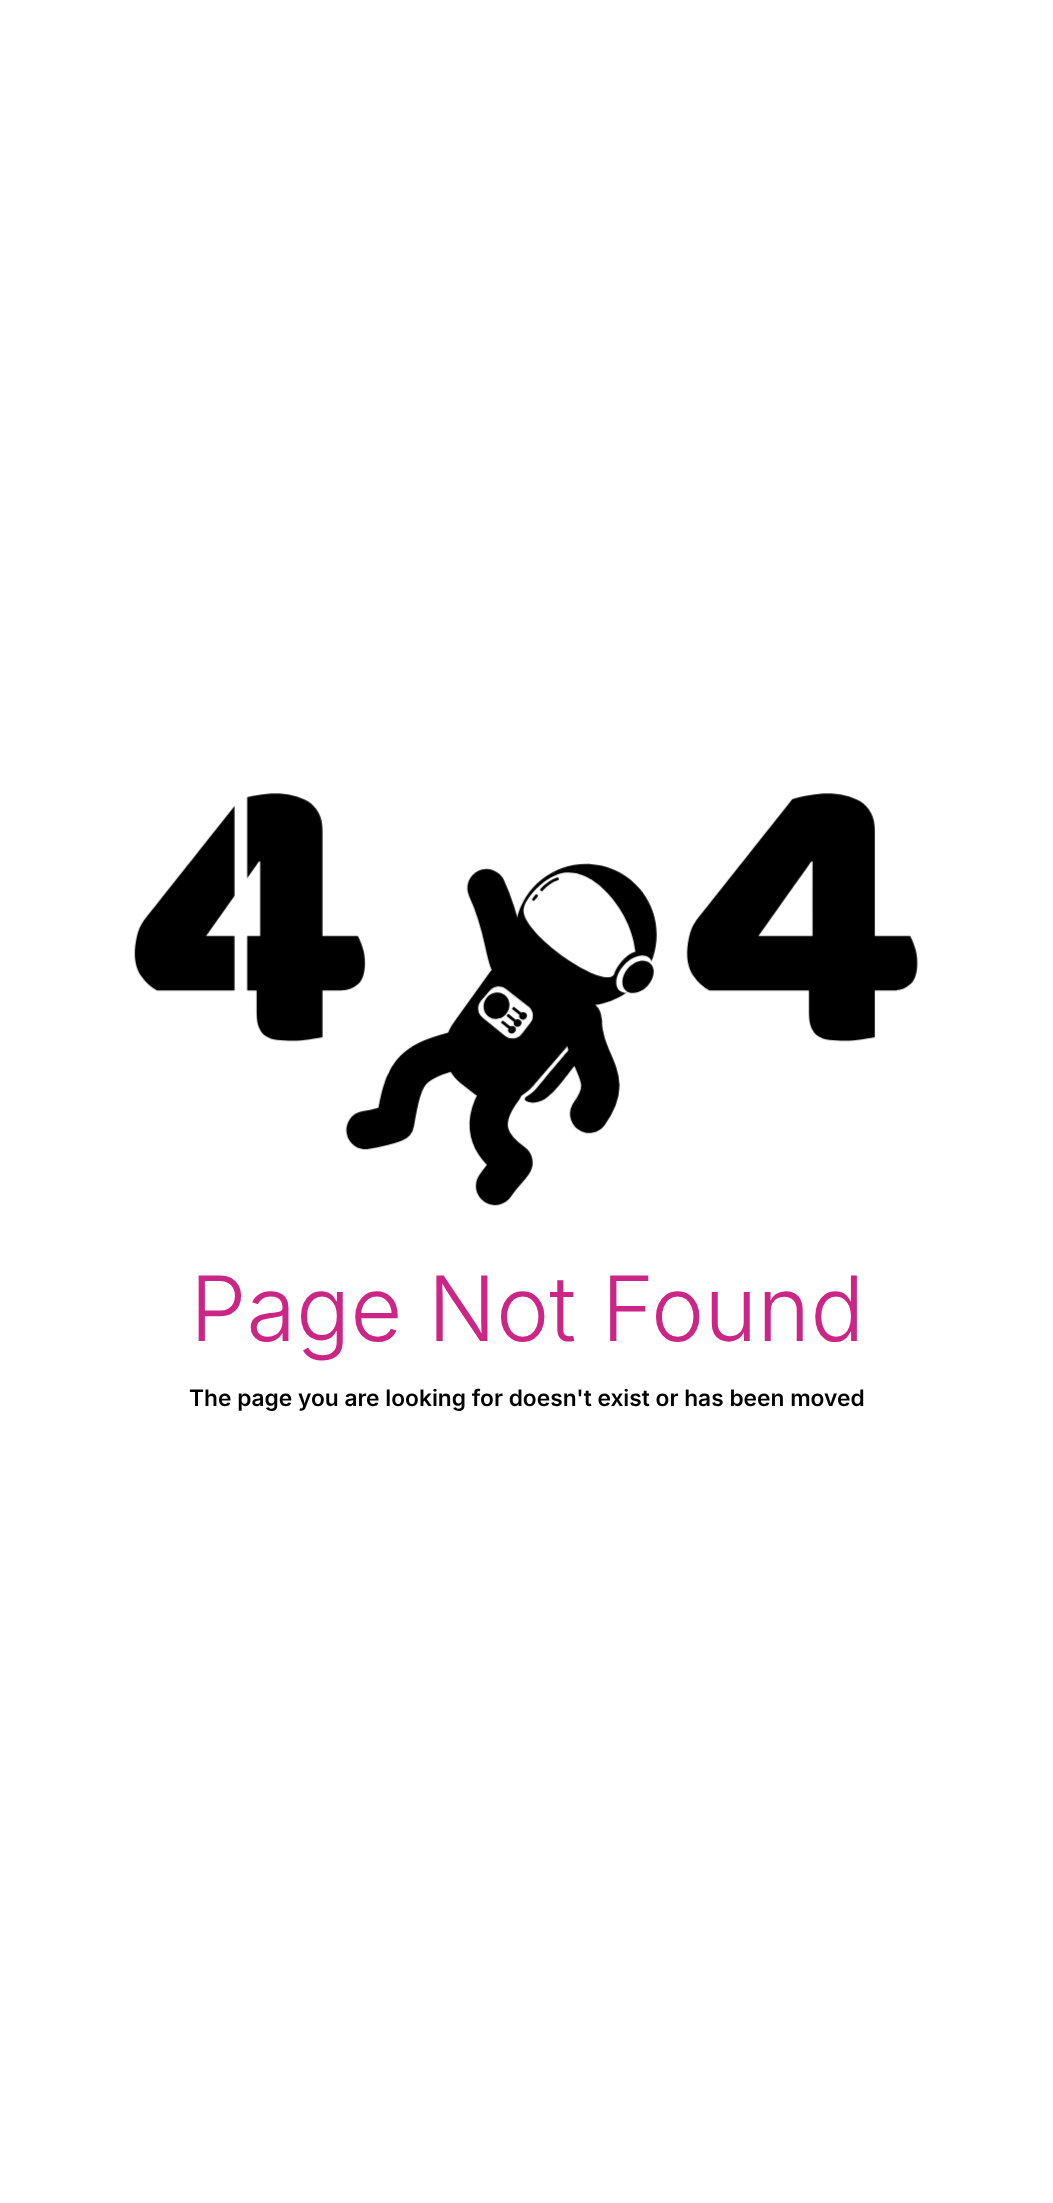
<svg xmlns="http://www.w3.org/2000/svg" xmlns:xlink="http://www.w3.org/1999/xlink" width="1053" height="2203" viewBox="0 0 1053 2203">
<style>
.cls-1{font:300 90px Inter;fill:#cb2686}
.cls-2{font:600 22.75px Inter;fill:#000000}
</style>
<rect width="100%" height="100%" fill="#ffffff"/>
<image xlink:href="image0.png" x="134" y="793" width="784" height="413"/>
<text class="cls-1" x="190" y="1341">Page Not Found</text>
<text class="cls-2" x="189" y="1406">The page you are looking for doesn't exist or has been moved</text>
</svg>
